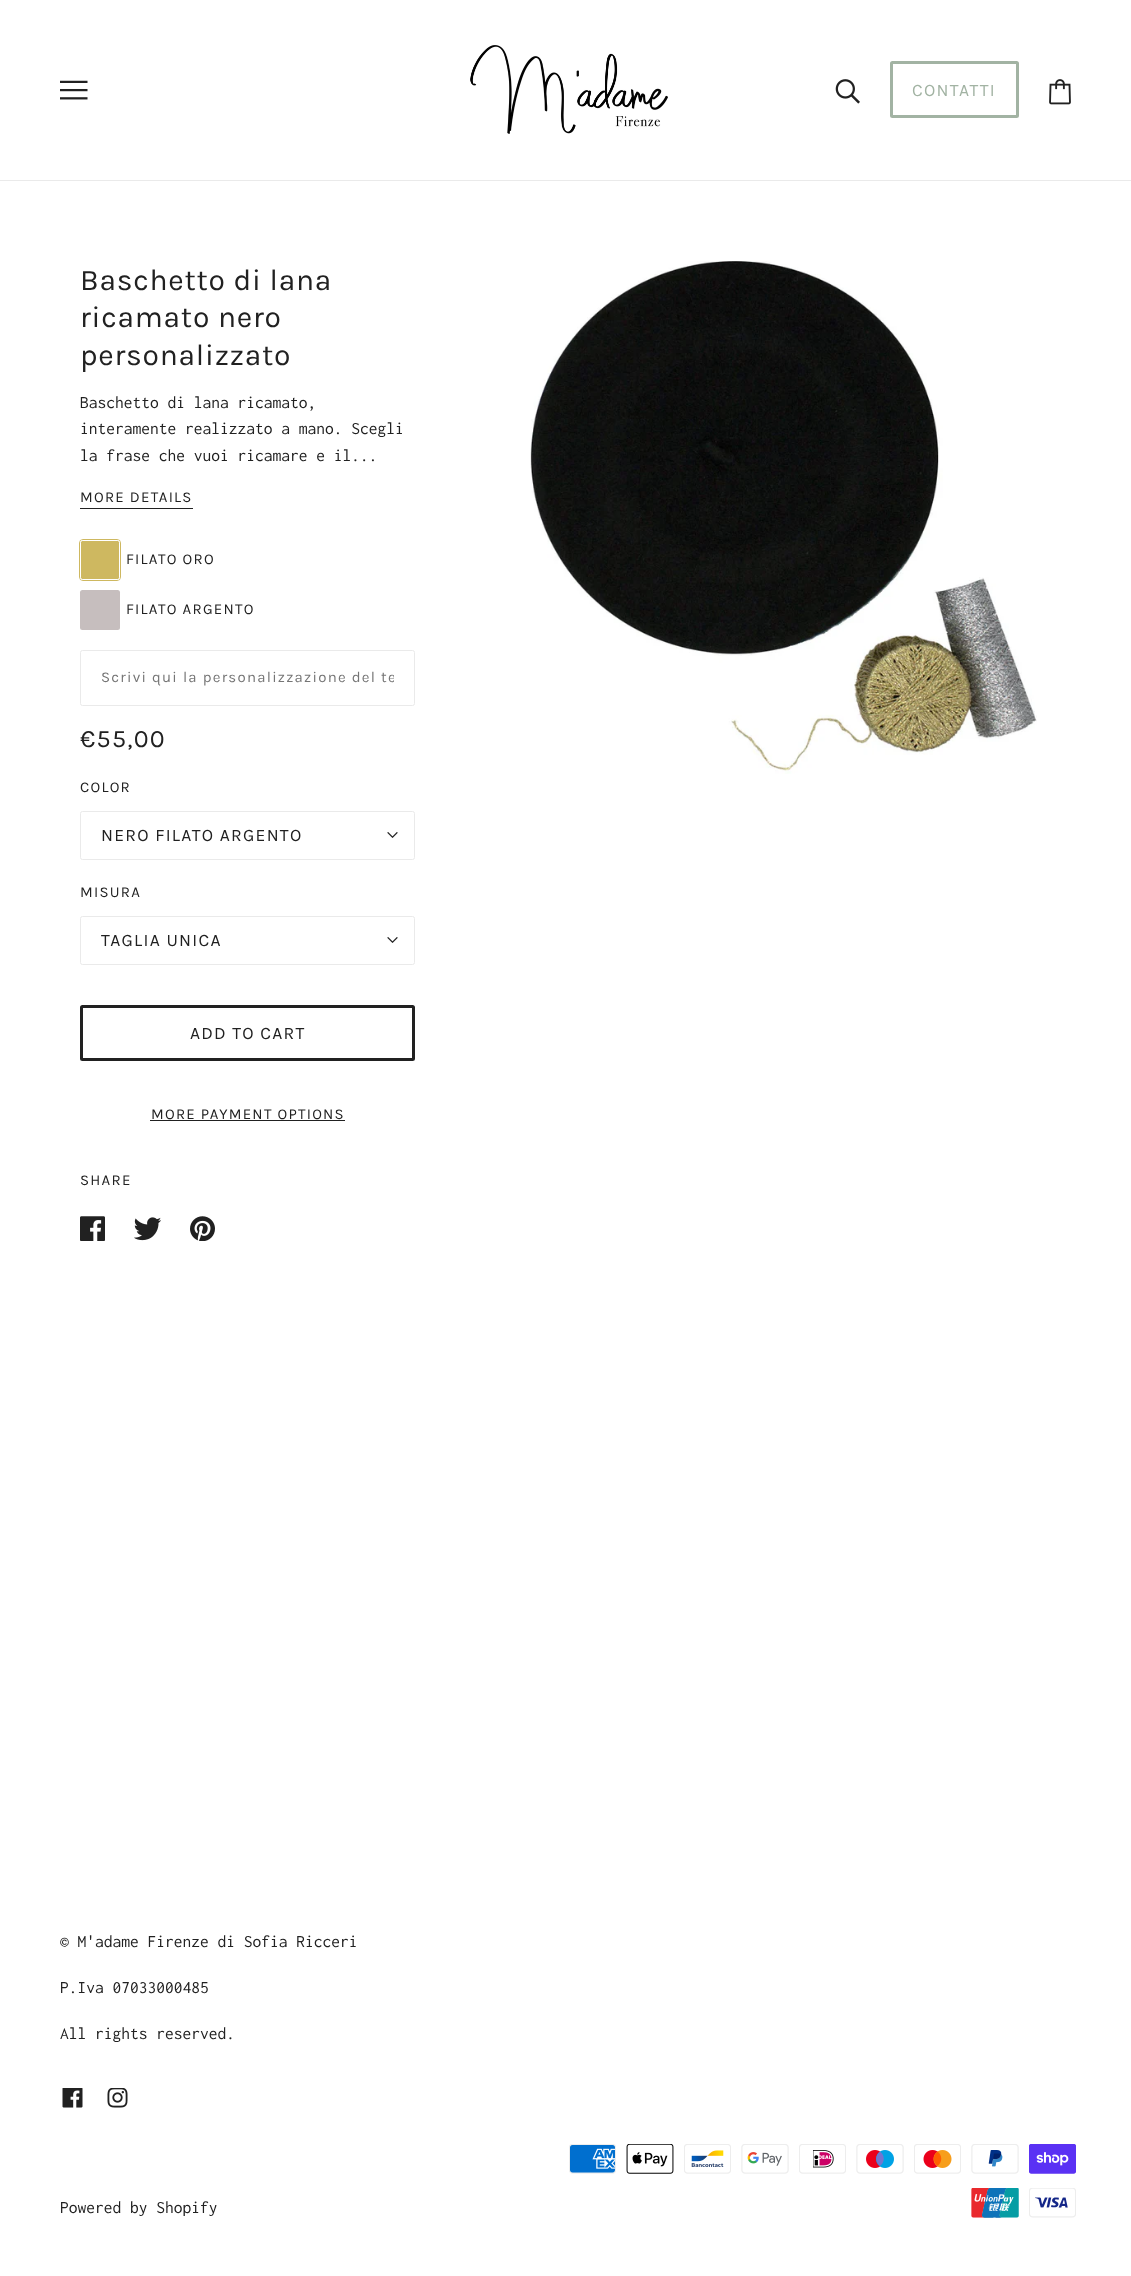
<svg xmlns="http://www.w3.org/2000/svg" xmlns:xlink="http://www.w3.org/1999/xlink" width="1131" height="2276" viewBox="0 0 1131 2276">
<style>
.cls-1{font:17.5px Karla;letter-spacing:1.25px;fill:#a2b3a3}
.cls-2{font:30px Karla;letter-spacing:0.75px;fill:#212121}
.cls-3{font:17.5px Inconsolata;fill:#212121}
.cls-4{font:15px Karla;letter-spacing:1.25px;fill:#212121}
.cls-5{font:15px Karla;letter-spacing:1.25px;fill:#757575}
.cls-6{font:25px Karla;letter-spacing:1.25px;fill:#212121}
.cls-7{font:17.5px Karla;letter-spacing:1.25px;fill:#212121}
</style>
<defs>
<clipPath id="clip1"><rect x="101" y="669" width="293" height="17"/></clipPath>
</defs>
<rect width="100%" height="100%" fill="#ffffff"/>
<rect fill="#eaeaea" x="0" y="180" width="1131" height="1"/>
<image xlink:href="image0.png" x="60" y="80" width="28" height="20"/>
<image xlink:href="image1.png" x="470" y="45" width="198" height="89"/>
<image xlink:href="image2.png" x="835" y="79" width="25" height="25"/>
<rect fill="none" stroke="#a2b3a3" stroke-width="3" x="891.5" y="62.5" width="126" height="54" rx="1"/>
<image xlink:href="image3.png" x="1049" y="79" width="22" height="26"/>
<rect fill="#212121" x="80" y="508" width="113" height="1"/>
<rect fill="none" stroke="#ceb860" x="79.5" y="539.5" width="41" height="41" rx="3.5"/>
<rect fill="#ceb860" stroke="#ffffff" x="80.5" y="540.5" width="39" height="39" rx="2"/>
<rect fill="#c6bebe" x="80" y="590" width="40" height="40" rx="2.5"/>
<rect fill="none" stroke="#eaeaea" x="80.5" y="650.5" width="334" height="55" rx="2"/>
<rect fill="none" stroke="#eaeaea" x="80.5" y="811.5" width="334" height="48" rx="2"/>
<image xlink:href="image4.png" x="387" y="832" width="11" height="6"/>
<rect fill="none" stroke="#eaeaea" x="80.5" y="916.5" width="334" height="48" rx="2"/>
<image xlink:href="image4.png" x="387" y="937" width="11" height="6"/>
<rect fill="none" stroke="#212121" stroke-width="3" x="81.5" y="1006.5" width="332" height="53" rx="1"/>
<rect fill="#212121" x="150" y="1120" width="195" height="1"/>
<image xlink:href="image5.png" x="80" y="1216" width="25" height="25"/>
<image xlink:href="image6.png" x="134" y="1217" width="27" height="24"/>
<image xlink:href="image7.png" x="190" y="1216" width="25" height="25"/>
<image xlink:href="image8.png" x="530" y="261" width="507" height="513"/>
<image xlink:href="image9.png" x="62" y="2088" width="21" height="20"/>
<image xlink:href="image10.png" x="107" y="2088" width="21" height="20"/>
<image xlink:href="image11.png" x="569" y="2144" width="47" height="30"/>
<image xlink:href="image12.png" x="626" y="2144" width="48" height="30"/>
<image xlink:href="image13.png" x="684" y="2144" width="47" height="30"/>
<image xlink:href="image14.png" x="741" y="2144" width="48" height="30"/>
<image xlink:href="image15.png" x="799" y="2144" width="47" height="30"/>
<image xlink:href="image16.png" x="856" y="2144" width="48" height="30"/>
<image xlink:href="image17.png" x="914" y="2144" width="47" height="30"/>
<image xlink:href="image18.png" x="971" y="2144" width="48" height="30"/>
<image xlink:href="image19.png" x="1029" y="2144" width="47" height="30"/>
<image xlink:href="image20.png" x="971" y="2188" width="48" height="30"/>
<image xlink:href="image21.png" x="1029" y="2188" width="47" height="30"/>
<text class="cls-1" x="912" y="96">CONTATTI</text>
<text class="cls-2"><tspan x="80" y="290">Baschetto di lana</tspan><tspan x="80" y="327">ricamato nero</tspan><tspan x="80" y="365">personalizzato</tspan></text>
<text class="cls-3"><tspan x="80" y="408">Baschetto di lana ricamato,</tspan><tspan x="80" y="434">interamente realizzato a mano. Scegli</tspan><tspan x="80" y="461">la frase che vuoi ricamare e il...</tspan></text>
<text class="cls-4" x="80" y="502">MORE DETAILS</text>
<text class="cls-4" x="126" y="564">FILATO ORO</text>
<text class="cls-4" x="126" y="614">FILATO ARGENTO</text>
<g clip-path="url(#clip1)">
<text class="cls-5" x="101" y="682">Scrivi qui la personalizzazione del te</text>
</g>
<text class="cls-6" x="80" y="747">€55,00</text>
<text class="cls-4" x="80" y="792">COLOR</text>
<text class="cls-7" x="101" y="841">NERO FILATO ARGENTO</text>
<text class="cls-4" x="80" y="897">MISURA</text>
<text class="cls-7" x="101" y="946">TAGLIA UNICA</text>
<text class="cls-7" x="190" y="1039">ADD TO CART</text>
<text class="cls-4" x="151" y="1119">MORE PAYMENT OPTIONS</text>
<text class="cls-4" x="80" y="1185">SHARE</text>
<text class="cls-3" x="60" y="1947">© M'adame Firenze di Sofia Ricceri</text>
<text class="cls-3" x="60" y="1993">P.Iva 07033000485</text>
<text class="cls-3" x="60" y="2039">All rights reserved.</text>
<text class="cls-3" x="60" y="2213">Powered by Shopify</text>
</svg>
